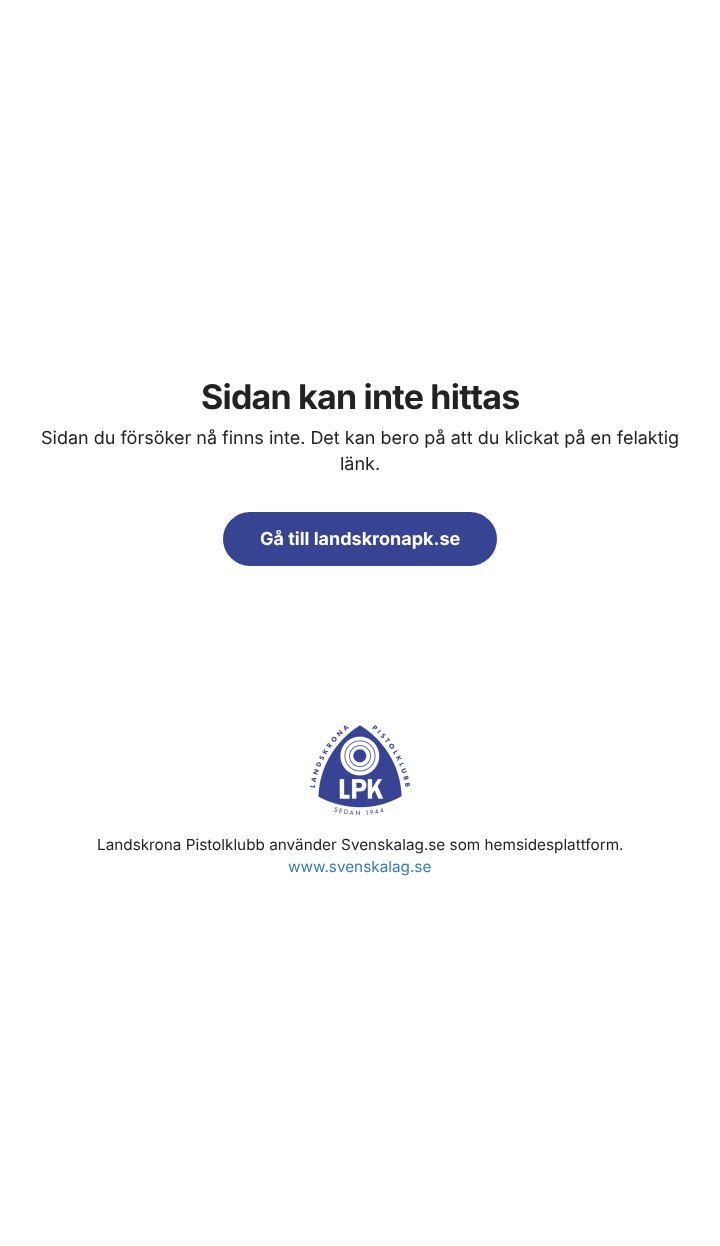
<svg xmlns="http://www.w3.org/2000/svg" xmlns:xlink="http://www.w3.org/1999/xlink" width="720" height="1246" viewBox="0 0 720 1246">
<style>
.cls-1{font:bold 34px Inter;letter-spacing:-0.8px;fill:#222222}
.cls-2{font:18px Inter;fill:#222222}
.cls-3{font:bold 18px Inter;fill:#ffffff}
.cls-4{font:15.3px Inter;fill:#222222}
.cls-5{font:15.3px Inter;fill:#337ab7}
</style>
<rect width="100%" height="100%" fill="#ffffff"/>
<rect fill="#374492" stroke="#374492" stroke-width="2" x="224" y="513" width="272" height="52" rx="26"/>
<image xlink:href="image0.png" x="310" y="725" width="100" height="91"/>
<text class="cls-1" x="201" y="409">Sidan kan inte hittas</text>
<text class="cls-2" x="41" y="444">Sidan du försöker nå finns inte. Det kan bero på att du klickat på en felaktig</text>
<text class="cls-2" x="340" y="470">länk.</text>
<text class="cls-3" x="260" y="545">Gå till landskronapk.se</text>
<text class="cls-4" x="97" y="850">Landskrona Pistolklubb använder Svenskalag.se som hemsidesplattform.</text>
<text class="cls-5" x="288" y="872">www.svenskalag.se</text>
</svg>
